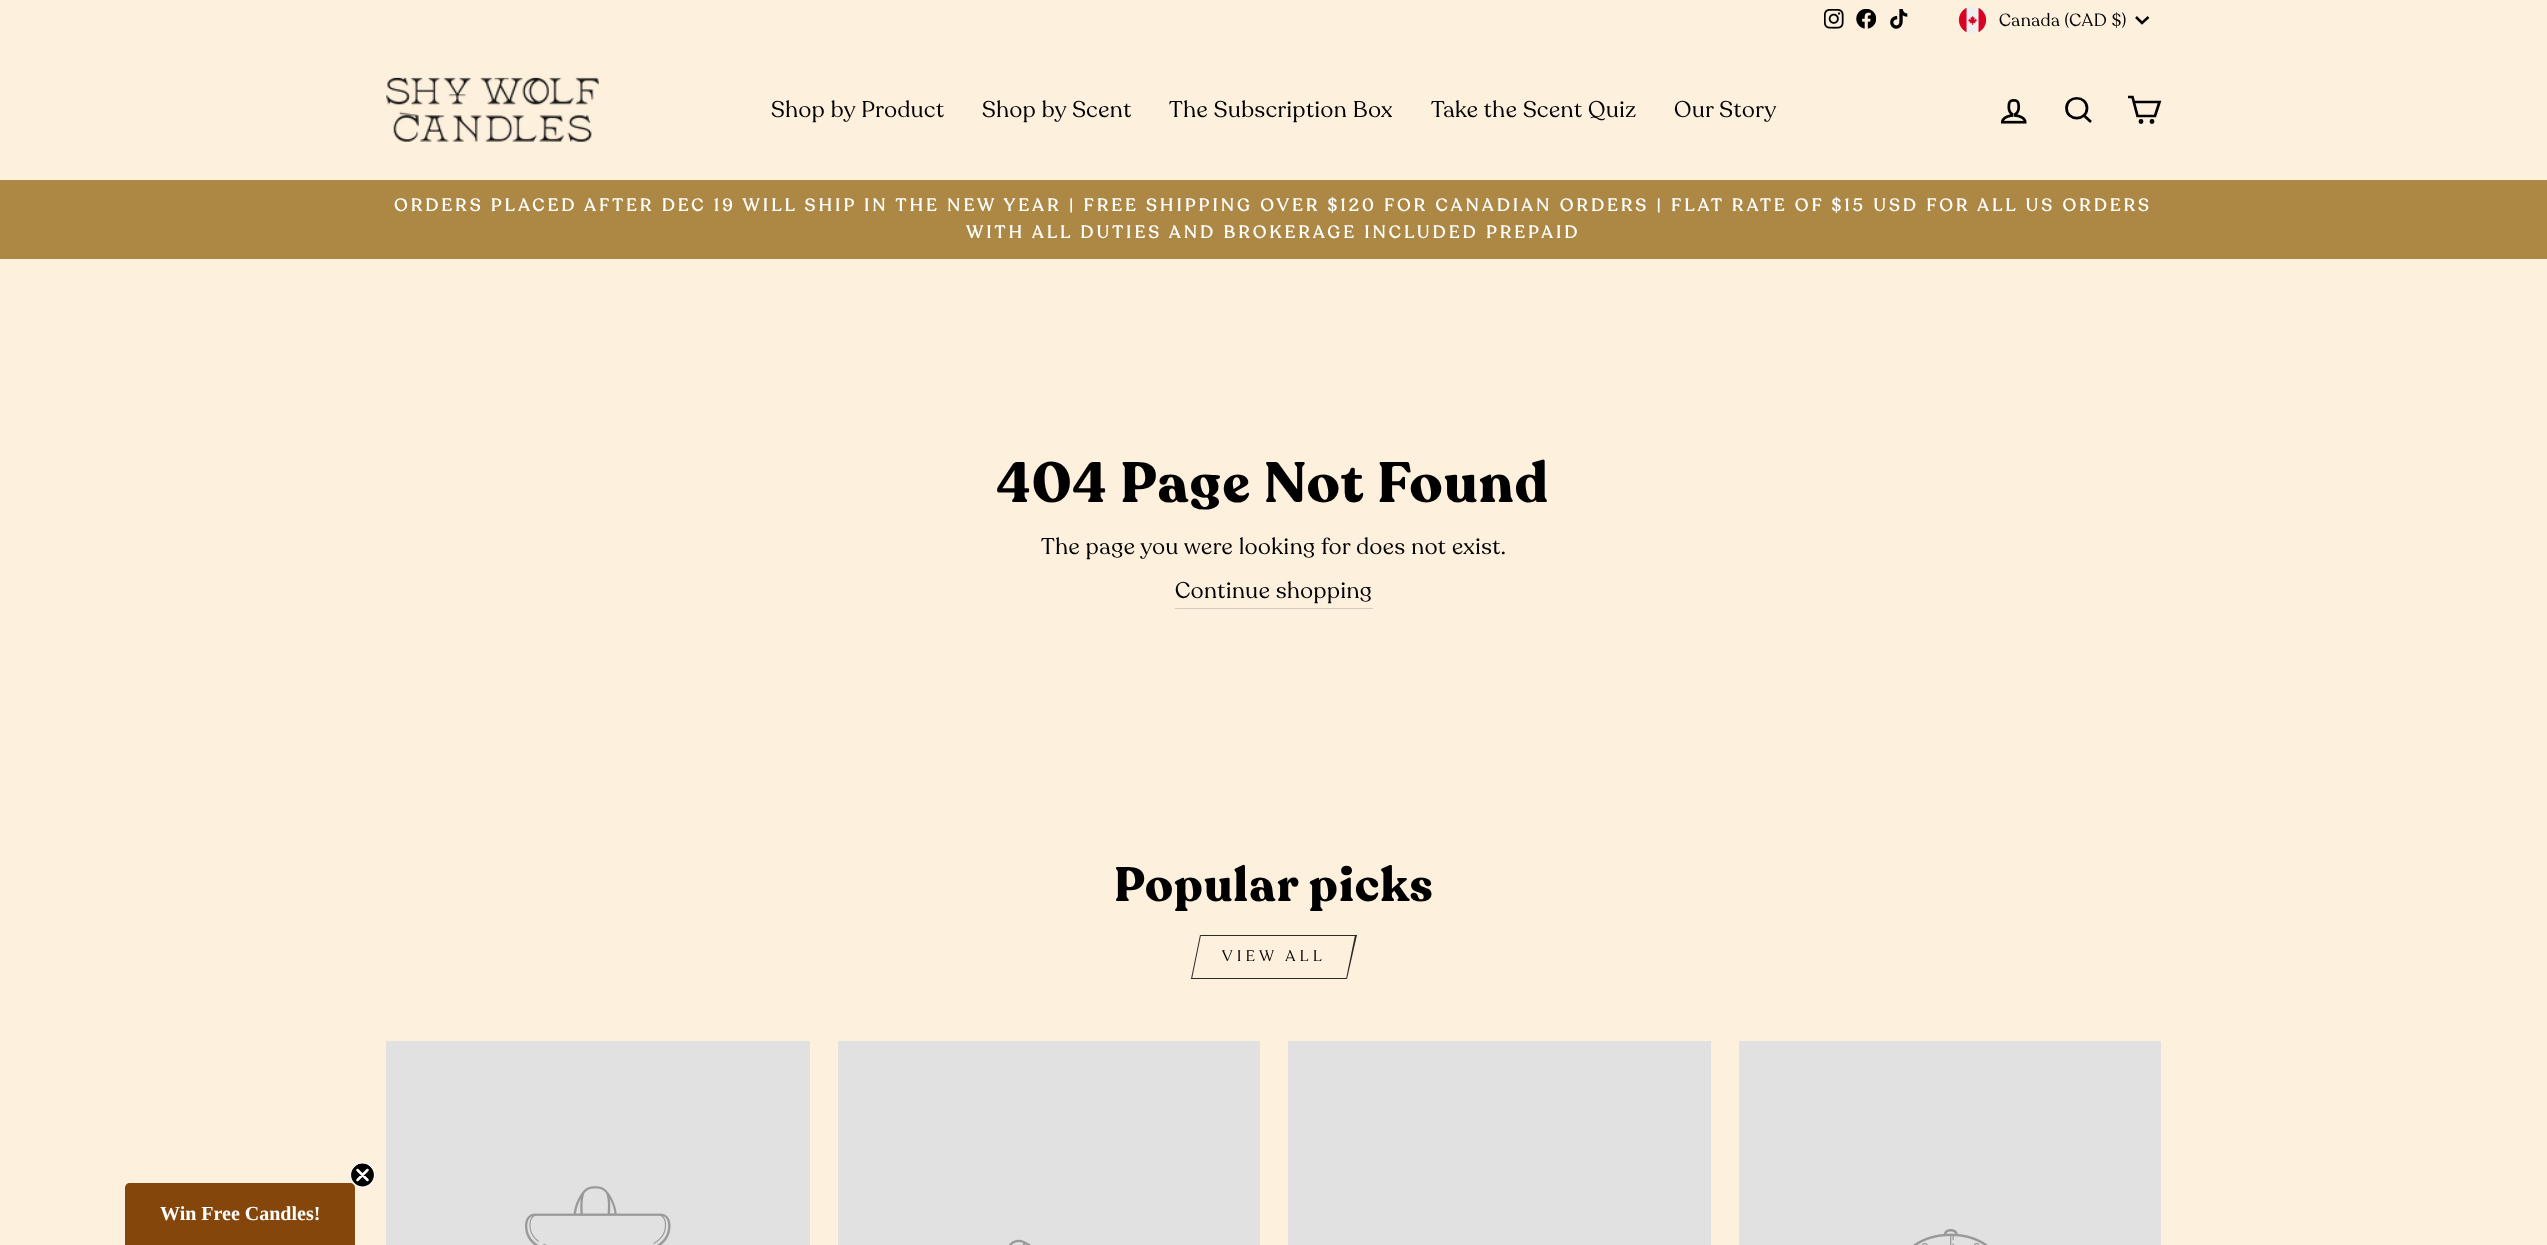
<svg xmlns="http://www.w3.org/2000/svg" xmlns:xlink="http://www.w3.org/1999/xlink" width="2547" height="1245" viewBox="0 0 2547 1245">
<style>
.cls-1{font:17.5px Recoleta;letter-spacing:0.5px;fill:#000000}
.cls-2{font:22.5px Recoleta;letter-spacing:0.55px;fill:#000000}
.cls-3{font:bold 17.21px 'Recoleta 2';letter-spacing:3.44px;fill:#ffffff}
.cls-4{font:bold 56.25px Recoleta;letter-spacing:1.4px;fill:#000000}
.cls-5{font:bold 47.75px Recoleta;letter-spacing:1.25px;fill:#000000}
.cls-6{font:15px Recoleta;letter-spacing:4.5px;fill:#000000}
.cls-7{font:bold 20px Liberation Serif;fill:#ffffff}
</style>
<defs>
<clipPath id="clip1"><rect x="350" y="1163" width="25" height="25"/></clipPath>
</defs>
<rect width="100%" height="100%" fill="#fdf0dd"/>
<image xlink:href="image0.png" x="1824" y="9" width="20" height="20"/>
<image xlink:href="image1.png" x="1856" y="9" width="20" height="20"/>
<image xlink:href="image2.png" x="1890" y="9" width="18" height="20"/>
<image xlink:href="image3.png" x="1958" y="6" width="29" height="28"/>
<path fill="none" stroke="#000000" stroke-width="2.5" d="M2136 17L2142 23L2148.5 17"/>
<image xlink:href="image4.png" x="386" y="77" width="213" height="65"/>
<image xlink:href="image5.png" x="2000" y="99" width="27" height="25"/>
<path fill="none" stroke="#000000" stroke-width="2.7" d="M2087 108C2087 121.5 2066.5 121.5 2066.5 108C2066.5 95 2087 95 2087 108ZM2091 122L2084 115.5"/>
<path fill="none" stroke="#000000" stroke-width="2.7" d="M2134 102H2159.5L2155 116H2137.5L2132.5 97H2128"/>
<circle fill="none" stroke="#000000" stroke-width="2.7" cx="2141" cy="121.5" r="1.1"/>
<circle fill="none" stroke="#000000" stroke-width="2.7" cx="2152" cy="121.5" r="1.1"/>
<rect fill="#ad8845" x="0" y="180" width="2547" height="79"/>
<rect fill="#d7ccbc" x="1175" y="608" width="198" height="1"/>
<rect fill="#2b2a27" x="1201" y="935" width="156" height="1"/>
<rect fill="#2b2a27" x="1191" y="978" width="155" height="1"/>
<path fill="#2b2a27" d="M1200 935H1201L1192 979H1191Z"/>
<path fill="#2b2a27" d="M1355 935H1357L1347 979H1346Z"/>
<rect fill="#e1e1e1" x="386" y="1041" width="424" height="204"/>
<image xlink:href="image6.png" x="525" y="1186" width="146" height="59"/>
<rect fill="#e1e1e1" x="838" y="1041" width="422" height="204"/>
<image xlink:href="image7.png" x="1009" y="1239" width="22" height="6"/>
<rect fill="#e1e1e1" x="1288" y="1041" width="423" height="204"/>
<rect fill="#e1e1e1" x="1739" y="1041" width="422" height="204"/>
<image xlink:href="image8.png" x="1913" y="1229" width="75" height="16"/>
<path fill="#85460b" d="M130 1183H350C353 1183 355 1185 355 1188V1245H125V1188C125 1185 127 1183 130 1183Z"/>
<circle fill="#000000" cx="362.5" cy="1175" r="12"/>
<g clip-path="url(#clip1)">
<circle fill="none" stroke="#ffffff" stroke-width="1.2" cx="362.5" cy="1175" r="12"/>
</g>
<path fill="none" stroke="#ffffff" stroke-width="2.5" stroke-linecap="round" stroke-linejoin="round" d="M357.5 1170L367.5 1180M357.5 1180L367.5 1170Z"/>
<text class="cls-1" x="1999" y="26">Canada (CAD $)</text>
<text class="cls-2" x="771" y="117">Shop by Product</text>
<text class="cls-2" x="982" y="117">Shop by Scent</text>
<text class="cls-2" x="1169" y="117">The Subscription Box</text>
<text class="cls-2" x="1431" y="117">Take the Scent Quiz</text>
<text class="cls-2" x="1674" y="117">Our Story</text>
<text class="cls-3" x="394" y="211">ORDERS PLACED AFTER DEC 19 WILL SHIP IN THE NEW YEAR | FREE SHIPPING OVER $120 FOR CANADIAN ORDERS | FLAT RATE OF $15 USD FOR ALL US ORDERS</text>
<text class="cls-3" x="966" y="238">WITH ALL DUTIES AND BROKERAGE INCLUDED PREPAID</text>
<text class="cls-4" x="997" y="502">404 Page Not Found</text>
<text class="cls-2" x="1041" y="554">The page you were looking for does not exist.</text>
<text class="cls-2" x="1175" y="598">Continue shopping</text>
<text class="cls-5" x="1114" y="901">Popular picks</text>
<text class="cls-6" x="1222" y="961">VIEW ALL</text>
<text class="cls-7" x="160" y="1220">Win Free Candles!</text>
</svg>
